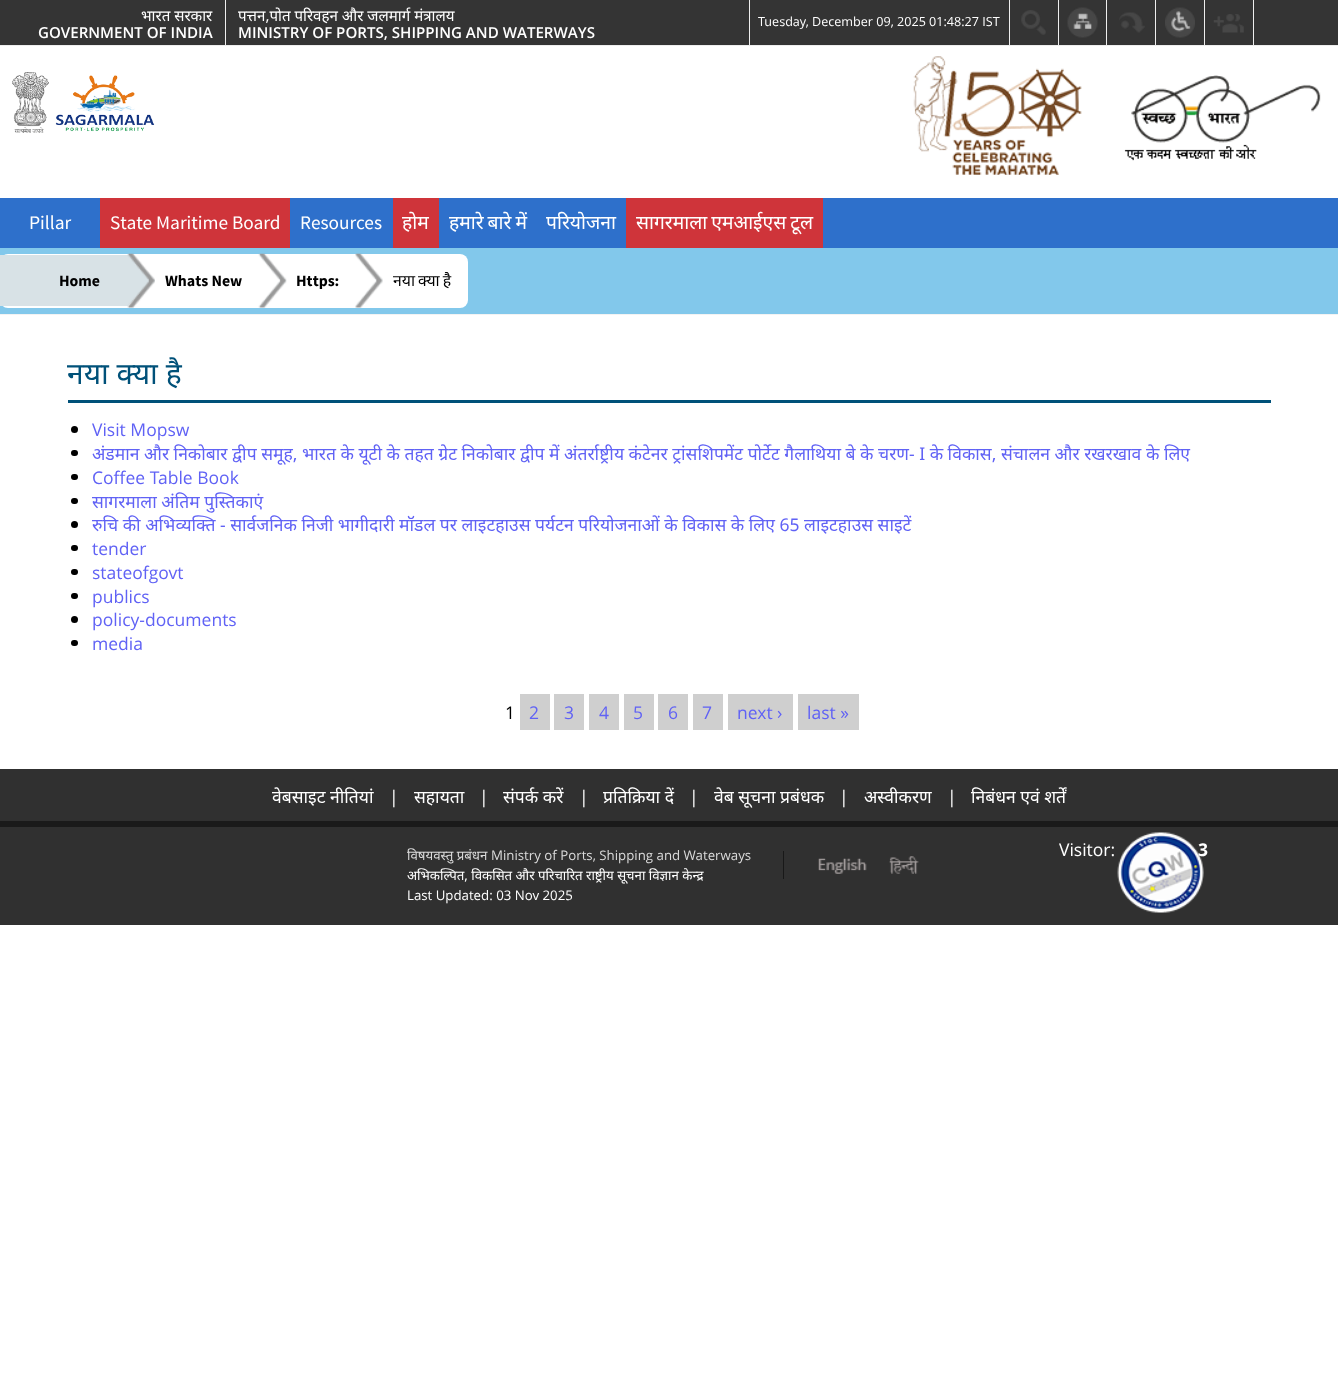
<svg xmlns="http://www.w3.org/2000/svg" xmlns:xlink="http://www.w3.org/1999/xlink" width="1338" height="1381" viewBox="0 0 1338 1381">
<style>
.cls-1{font:15.1px Noto Sans;fill:#ffffff}
.cls-2{font:600 15.1px Open Sans;fill:#ffffff}
.cls-3{font:12.6px Open Sans;fill:#ffffff}
.cls-4{font:19.25px Source Sans Pro;fill:#ffffff}
.cls-5{font:19.25px Noto Sans;fill:#ffffff}
.cls-6{font:bold 15.75px Source Sans Pro;fill:#000000}
.cls-7{font:15.75px Noto Sans;fill:#000000}
.cls-8{font:30px Noto Sans;fill:#005179}
.cls-9{font:17.5px Open Sans;fill:#6062f5}
.cls-10{font:17.5px Noto Sans;fill:#6062f5}
.cls-11{font:17.5px Open Sans;fill:#000000}
.cls-12{font:17.5px Noto Sans;fill:#ffffff}
.cls-13{font:17.5px Open Sans;fill:#ffffff}
.cls-14{font:13.25px Noto Sans;fill:#dadada}
.cls-15{font:13.25px Open Sans;fill:#dadada}
.cls-16{font:13.25px Noto Sans;fill:#ffffff}
.cls-17{font:13.25px Open Sans;fill:#ffffff}
.cls-18{font:bold 17.5px Open Sans;fill:#ffffff}
</style>
<rect width="100%" height="100%" fill="#ffffff"/>
<rect fill="#343434" x="0" y="0" width="1338" height="45"/>
<rect fill="#eeeeee" x="0" y="45" width="1338" height="1"/>
<rect fill="#eeeeee" x="225" y="0" width="1" height="45"/>
<rect fill="#eeeeee" x="749" y="0" width="1" height="45"/>
<rect fill="#eeeeee" x="1009" y="0" width="1" height="45"/>
<image xlink:href="image0.png" x="1021" y="10" width="25" height="25"/>
<rect fill="#eeeeee" x="1058" y="0" width="1" height="45"/>
<image xlink:href="image1.png" x="1067" y="7" width="31" height="31"/>
<rect fill="#eeeeee" x="1106" y="0" width="1" height="45"/>
<image xlink:href="image2.png" x="1119" y="12" width="26" height="21"/>
<rect fill="#eeeeee" x="1155" y="0" width="1" height="45"/>
<image xlink:href="image3.png" x="1165" y="7" width="30" height="31"/>
<rect fill="#eeeeee" x="1204" y="0" width="1" height="45"/>
<image xlink:href="image4.png" x="1213" y="14" width="31" height="19"/>
<rect fill="#eeeeee" x="1253" y="0" width="1" height="45"/>
<image xlink:href="image5.png" x="12" y="72" width="143" height="61"/>
<image xlink:href="image6.png" x="913" y="56" width="169" height="119"/>
<image xlink:href="image7.png" x="1124" y="75" width="197" height="86"/>
<rect fill="#2e70cb" x="0" y="198" width="1338" height="50"/>
<rect fill="#cf343a" x="100" y="198" width="190" height="50"/>
<rect fill="#cf343a" x="393" y="198" width="46" height="50"/>
<rect fill="#cf343a" x="626" y="198" width="197" height="50"/>
<rect fill="#82c8eb" x="0" y="248" width="1338" height="66"/>
<rect fill="#f3f3f3" x="0" y="314" width="1338" height="1"/>
<rect fill="#ffffff" x="0" y="254" width="468" height="54" rx="8"/>
<rect fill="#d8e2e6" x="0" y="255" width="128" height="51"/>
<path fill="#d8e2e6" d="M128 306V254L152 280Z"/>
<image xlink:href="image8.png" x="127" y="253" width="28" height="55"/>
<image xlink:href="image9.png" x="258" y="253" width="29" height="55"/>
<image xlink:href="image10.png" x="355" y="253" width="28" height="55"/>
<rect fill="#005179" x="68" y="400" width="1203" height="3"/>
<circle fill="#000000" cx="74.5" cy="429.5" r="3.5"/>
<rect fill="#000000" x="71" y="450" width="7" height="6" rx="3"/>
<rect fill="#000000" x="71" y="474" width="7" height="6" rx="3"/>
<rect fill="#000000" x="71" y="498" width="7" height="6" rx="3"/>
<circle fill="#000000" cx="74.5" cy="524.5" r="3.5"/>
<rect fill="#000000" x="71" y="545" width="7" height="6" rx="3"/>
<rect fill="#000000" x="71" y="569" width="7" height="6" rx="3"/>
<rect fill="#000000" x="71" y="593" width="7" height="6" rx="3"/>
<circle fill="#000000" cx="74.5" cy="619.5" r="3.5"/>
<rect fill="#000000" x="71" y="640" width="7" height="6" rx="3"/>
<rect fill="#cfcfcf" x="520" y="694" width="30" height="36"/>
<rect fill="#cfcfcf" x="554" y="694" width="30" height="36"/>
<rect fill="#cfcfcf" x="589" y="694" width="30" height="36"/>
<rect fill="#cfcfcf" x="624" y="694" width="30" height="36"/>
<rect fill="#cfcfcf" x="658" y="694" width="30" height="36"/>
<rect fill="#cfcfcf" x="693" y="694" width="30" height="36"/>
<rect fill="#cfcfcf" x="728" y="694" width="65" height="36"/>
<rect fill="#cfcfcf" x="798" y="694" width="61" height="36"/>
<rect fill="#303030" x="0" y="769" width="1338" height="52"/>
<rect fill="#303030" x="0" y="827" width="1338" height="98"/>
<rect fill="#1a1a1a" x="0" y="821" width="1338" height="6"/>
<rect fill="#181818" x="783" y="851" width="1" height="28"/>
<image xlink:href="image12.png" x="818" y="858" width="49" height="16"/>
<image xlink:href="image13.png" x="889" y="856" width="30" height="18"/>
<text class="cls-1" x="141" y="21">भारत सरकार</text>
<text class="cls-2" x="38" y="38">GOVERNMENT OF INDIA</text>
<text class="cls-1" x="238" y="21">पत्तन,पोत परिवहन और जलमार्ग मंत्रालय</text>
<text class="cls-2" x="238" y="38">MINISTRY OF PORTS, SHIPPING AND WATERWAYS</text>
<text class="cls-3" x="758" y="26">Tuesday, December 09, 2025 01:48:27 IST</text>
<text class="cls-4" x="29" y="229">Pillar</text>
<text class="cls-4" x="110" y="229">State Maritime Board</text>
<text class="cls-4" x="300" y="229">Resources</text>
<text class="cls-5" x="402" y="229">होम</text>
<text class="cls-5" x="449" y="229" word-spacing="-1">हमारे बारे में</text>
<text class="cls-5" x="546" y="229">परियोजना</text>
<text class="cls-5" x="636" y="229" word-spacing="-1">सागरमाला एमआईएस टूल</text>
<text class="cls-6" x="59" y="286">Home</text>
<text class="cls-6" x="165" y="286">Whats New</text>
<text class="cls-6" x="296" y="286">Https:</text>
<text class="cls-7" x="393" y="286" word-spacing="-1">नया क्या है</text>
<text class="cls-8" x="67" y="384">नया क्या है</text>
<text class="cls-9" x="92" y="436">Visit Mopsw</text>
<text class="cls-10" x="92" y="460">अंडमान और निकोबार द्वीप समूह, भारत के यूटी के तहत ग्रेट निकोबार द्वीप में अंतर्राष्ट्रीय कंटेनर ट्रांसशिपमेंट पोर्टेट गैलाथिया बे के चरण- I के विकास, संचालन और रखरखाव के लिए</text>
<text class="cls-9" x="92" y="484">Coffee Table Book</text>
<text class="cls-10"><tspan x="92" y="508">सागरमाला अंतिम पुस्तिकाएं</tspan><tspan x="92" y="531">रुचि की अभिव्यक्ति - सार्वजनिक निजी भागीदारी मॉडल पर लाइटहाउस पर्यटन परियोजनाओं के विकास के लिए 65 लाइटहाउस साइटें</tspan></text>
<text class="cls-9"><tspan x="92" y="555">tender</tspan><tspan x="92" y="579">stateofgovt</tspan><tspan x="92" y="603">publics</tspan><tspan x="92" y="626">policy-documents</tspan><tspan x="92" y="650">media</tspan></text>
<text class="cls-11" x="505" y="719">1</text>
<text class="cls-9" x="529" y="719">2</text>
<text class="cls-9" x="564" y="719">3</text>
<text class="cls-9" x="599" y="719">4</text>
<text class="cls-9" x="633" y="719">5</text>
<text class="cls-9" x="668" y="719">6</text>
<text class="cls-9" x="702" y="719">7</text>
<text class="cls-9" x="737" y="719">next ›</text>
<text class="cls-9" x="807" y="719">last »</text>
<text class="cls-12" x="272" y="803">वेबसाइट नीतियां</text>
<text class="cls-13" x="389" y="803">|</text>
<text class="cls-12" x="414" y="803">सहायता</text>
<text class="cls-13" x="479" y="803">|</text>
<text class="cls-12" x="503" y="803">संपर्क करें</text>
<text class="cls-13" x="579" y="803">|</text>
<text class="cls-12" x="603" y="803">प्रतिक्रिया दें</text>
<text class="cls-13" x="689" y="803">|</text>
<text class="cls-12" x="714" y="803">वेब सूचना प्रबंधक</text>
<text class="cls-13" x="839" y="803">|</text>
<text class="cls-12" x="864" y="803">अस्वीकरण</text>
<text class="cls-13" x="947" y="803">|</text>
<text class="cls-12" x="971" y="803">निबंधन एवं शर्तें</text>
<text class="cls-14" x="407" y="860">विषयवस्तु प्रबंधन</text>
<text class="cls-15" x="491" y="860">Ministry of Ports, Shipping and Waterways</text>
<text class="cls-16" x="407" y="880">अभिकल्पित, विकसित और परिचारित</text>
<text class="cls-16" x="586" y="880">राष्ट्रीय सूचना विज्ञान केन्द्र</text>
<text class="cls-17" x="407" y="900">Last Updated: 03 Nov 2025</text>
<text class="cls-13" x="1059" y="856">Visitor:</text>
<text class="cls-18" x="1198" y="856">3</text>
<image xlink:href="image11.png" x="1117" y="832" width="87" height="81"/>
</svg>
